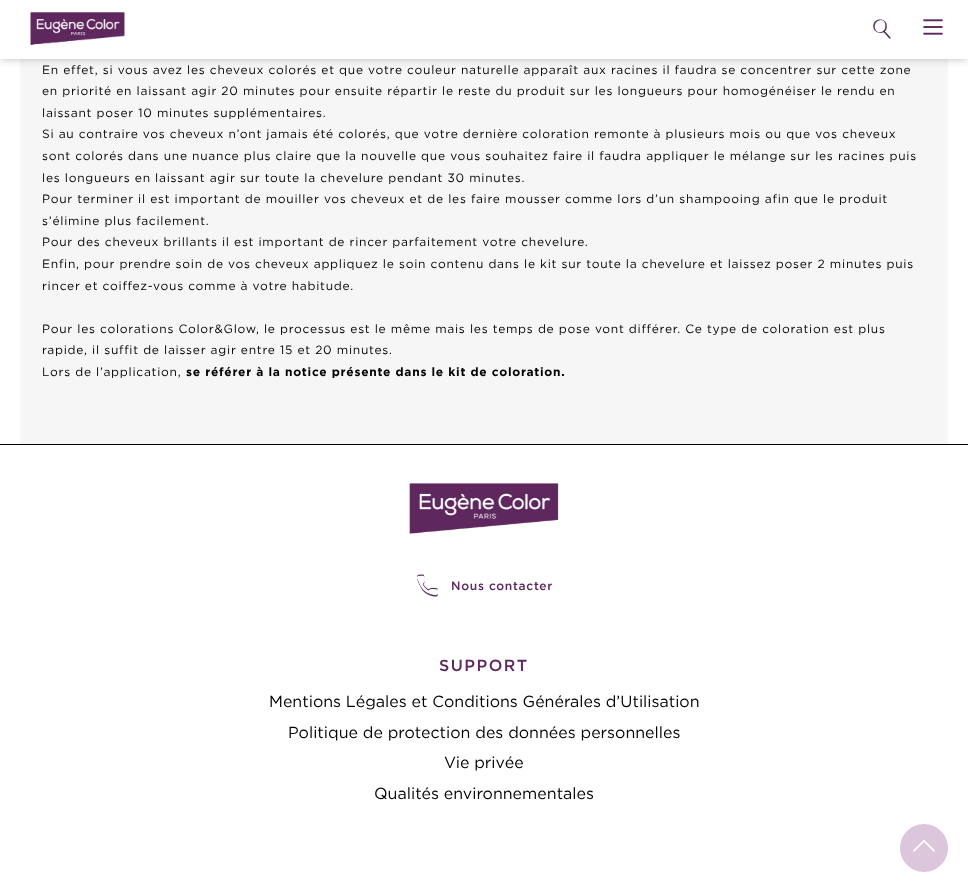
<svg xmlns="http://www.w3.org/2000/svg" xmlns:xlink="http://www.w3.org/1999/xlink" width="968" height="892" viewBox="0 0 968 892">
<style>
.cls-1{font:12px Gotham;letter-spacing:0.74px;fill:#000000}
.cls-2{font:bold 12px Gotham;letter-spacing:0.74px;fill:#000000}
.cls-3{font:500 12px Gotham;letter-spacing:0.7px;fill:#5d275f}
.cls-4{font:500 16px Gotham;letter-spacing:1.5px;fill:#5d275f}
.cls-5{font:16px Gotham;fill:#000000}
</style>
<rect width="100%" height="100%" fill="#ffffff"/>
<rect fill="#f6f6f6" x="20" y="59" width="928" height="385"/>
<rect fill="#000000" fill-opacity="0.06" filter="blur(2px)" x="1" y="2" width="966" height="58"/>
<rect fill="#000000" fill-opacity="0.1" filter="blur(3px)" x="1" y="4" width="966" height="58"/>
<rect fill="#ffffff" x="0" y="0" width="968" height="59"/>
<image xlink:href="image0.png" x="30" y="12" width="95" height="33"/>
<image xlink:href="image1.png" x="873" y="19" width="18" height="20"/>
<image xlink:href="image2.png" x="923" y="19" width="20" height="16"/>
<rect fill="#000000" x="0" y="444" width="968" height="1"/>
<image xlink:href="image3.png" x="409" y="483" width="150" height="51"/>
<image xlink:href="image4.png" x="417" y="574" width="21" height="23"/>
<circle fill="#dcc6db" cx="924" cy="848" r="24"/>
<path fill="#ffffff" d="M925.5 841L924 839.5L913 850.5L914 852L924 842L934 852L935 850.5Z"/>
<text class="cls-1"><tspan x="42" y="74">En effet, si vous avez les cheveux colorés et que votre couleur naturelle apparaît aux racines il faudra se concentrer sur cette zone</tspan><tspan x="42" y="95">en priorité en laissant agir 20 minutes pour ensuite répartir le reste du produit sur les longueurs pour homogénéiser le rendu en</tspan><tspan x="42" y="117">laissant poser 10 minutes supplémentaires.</tspan><tspan x="42" y="138">Si au contraire vos cheveux n’ont jamais été colorés, que votre dernière coloration remonte à plusieurs mois ou que vos cheveux</tspan><tspan x="42" y="160">sont colorés dans une nuance plus claire que la nouvelle que vous souhaitez faire il faudra appliquer le mélange sur les racines puis</tspan><tspan x="42" y="182">les longueurs en laissant agir sur toute la chevelure pendant 30 minutes.</tspan><tspan x="42" y="203">Pour terminer il est important de mouiller vos cheveux et de les faire mousser comme lors d’un shampooing afin que le produit</tspan><tspan x="42" y="225">s’élimine plus facilement.</tspan><tspan x="42" y="246">Pour des cheveux brillants il est important de rincer parfaitement votre chevelure.</tspan><tspan x="42" y="268">Enfin, pour prendre soin de vos cheveux appliquez le soin contenu dans le kit sur toute la chevelure et laissez poser 2 minutes puis</tspan><tspan x="42" y="290">rincer et coiffez-vous comme à votre habitude.</tspan></text>
<text class="cls-1"><tspan x="42" y="333">Pour les colorations Color&amp;Glow, le processus est le même mais les temps de pose vont différer. Ce type de coloration est plus</tspan><tspan x="42" y="354">rapide, il suffit de laisser agir entre 15 et 20 minutes.</tspan><tspan x="42" y="376">Lors de l’application,</tspan></text>
<text class="cls-2" x="186" y="376">se référer à la notice présente dans le kit de coloration.</text>
<text class="cls-3" x="451" y="590">Nous contacter</text>
<text class="cls-4" x="439" y="671">SUPPORT</text>
<text class="cls-5" x="269" y="707">Mentions Légales et Conditions Générales d’Utilisation</text>
<text class="cls-5" x="288" y="738">Politique de protection des données personnelles</text>
<text class="cls-5" x="444" y="768">Vie privée</text>
<text class="cls-5" x="374" y="799">Qualités environnementales</text>
</svg>
